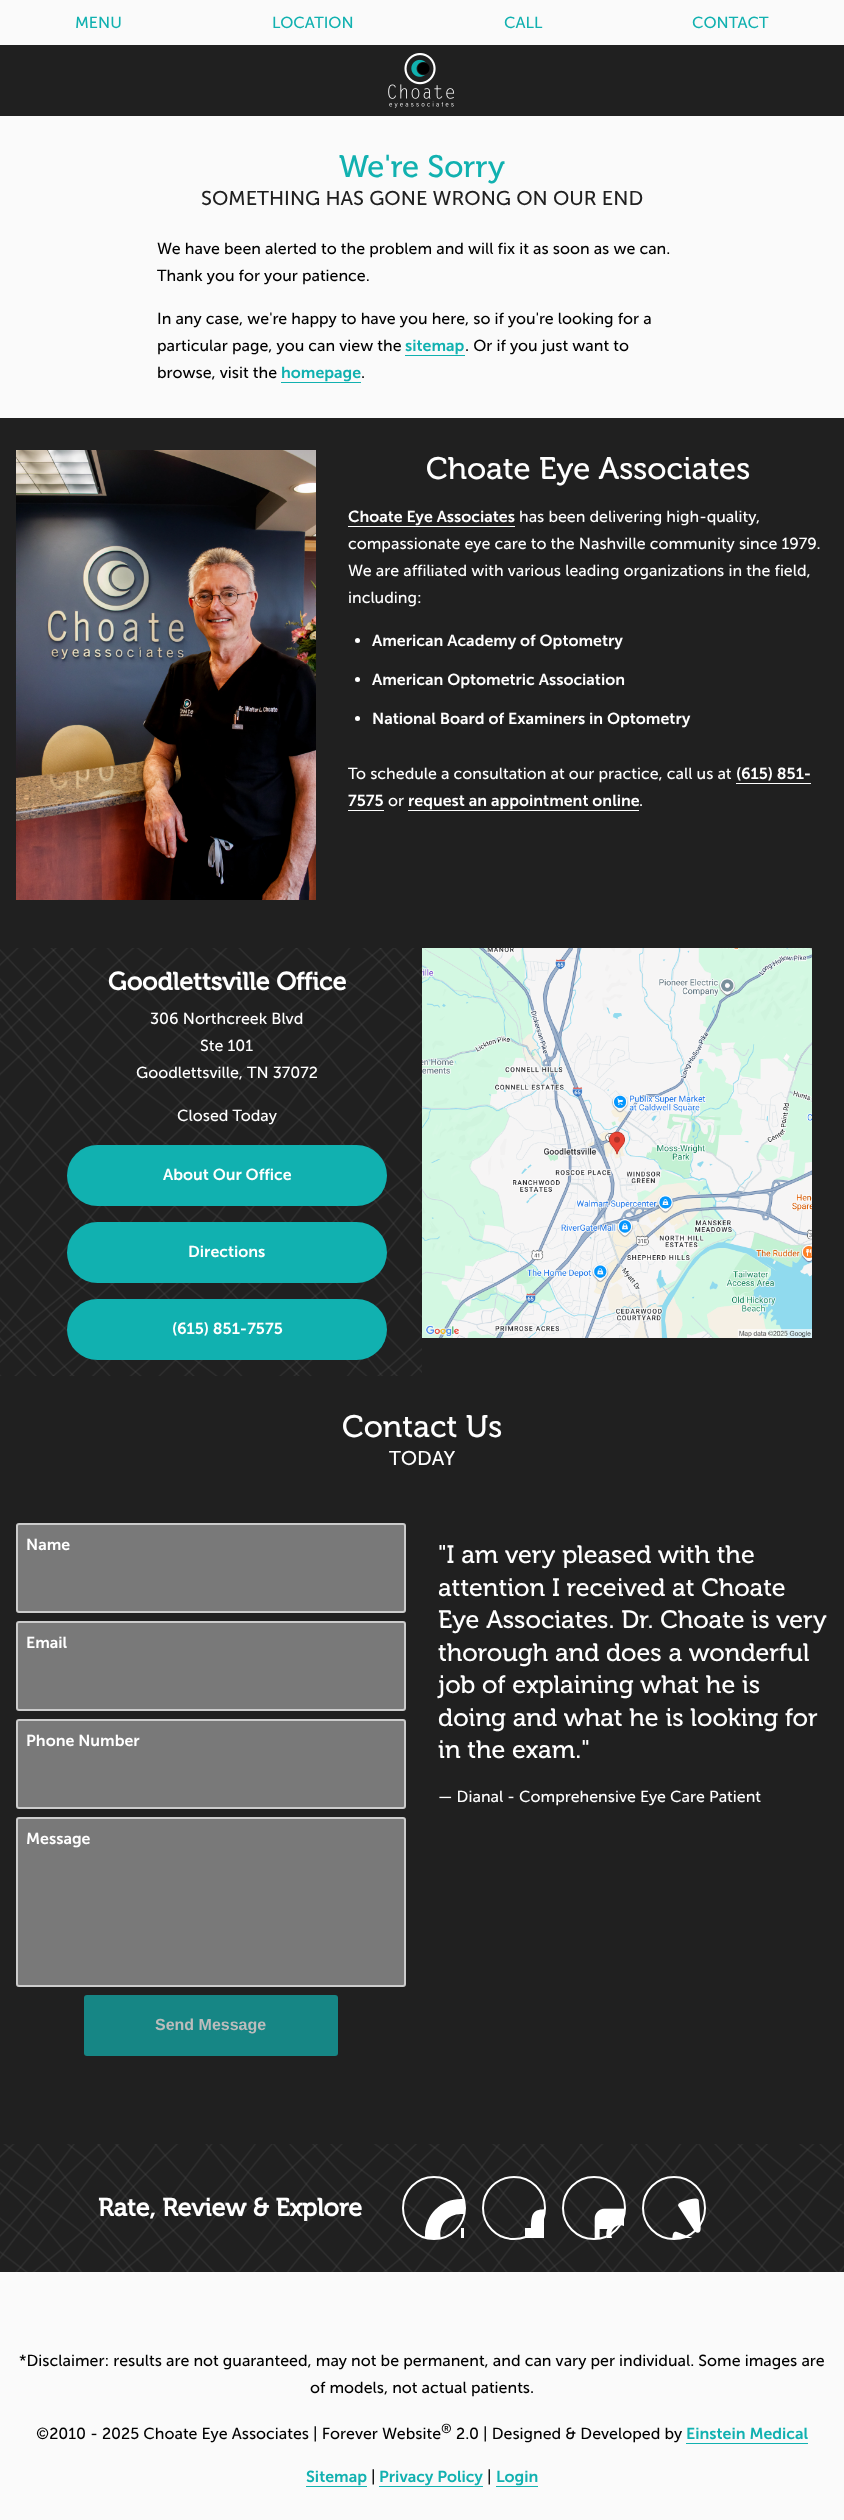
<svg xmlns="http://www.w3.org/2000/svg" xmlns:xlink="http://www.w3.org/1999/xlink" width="844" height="2520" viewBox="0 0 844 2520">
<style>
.cls-1{font:16px 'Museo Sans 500';fill:#11b1b0}
.cls-2{font:31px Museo;fill:#11b1b0}
.cls-3{font:20px 'Museo Sans 500';fill:#202020}
.cls-4{font:16px 'Museo Sans 500';fill:#000000}
.cls-5{font:600 16px 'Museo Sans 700';fill:#11b1b0}
.cls-6{font:31px Museo;fill:#ffffff}
.cls-7{font:600 16px 'Museo Sans 700';fill:#ffffff}
.cls-8{font:16px 'Museo Sans 500';fill:#ffffff}
.cls-9{font:bold 25px Museo;fill:#ffffff}
.cls-10{font:20px 'Museo Sans 500';fill:#ffffff}
.cls-11{font:bold 16px Liberation Sans;fill:#bcbcbc}
.cls-12{font:25px Museo;fill:#ffffff}
.cls-13{font:13px 'Museo Sans 500';fill:#000000}
</style>
<defs>
<clipPath id="clip1"><rect x="404" y="2178" width="60" height="60"/></clipPath>
<clipPath id="clip2"><rect x="484" y="2178" width="60" height="60"/></clipPath>
</defs>
<rect width="100%" height="100%" fill="#202020"/>
<rect fill="#fafafa" x="0" y="0" width="844" height="45"/>
<image xlink:href="image0.png" x="388" y="53" width="67" height="55"/>
<rect fill="#fafafa" x="0" y="116" width="844" height="302"/>
<rect fill="#11b1b0" x="405" y="355" width="60" height="1"/>
<rect fill="#11b1b0" x="281" y="382" width="80" height="1"/>
<image xlink:href="image1.png" x="16" y="450" width="300" height="450"/>
<rect fill="#ffffff" x="348" y="526" width="167" height="1"/>
<circle fill="#ffffff" cx="357.5" cy="640.5" r="2.5"/>
<circle fill="#ffffff" cx="357.5" cy="679.5" r="2.5"/>
<circle fill="#ffffff" cx="357.5" cy="718.5" r="2.5"/>
<rect fill="#ffffff" x="736" y="783" width="75" height="1"/>
<rect fill="#ffffff" x="348" y="810" width="36" height="1"/>
<rect fill="#ffffff" x="408" y="810" width="231" height="1"/>
<image xlink:href="image2.png" x="0" y="948" width="422" height="428"/>
<rect fill="#11b1b0" x="67" y="1145" width="320" height="61" rx="30.5"/>
<rect fill="#11b1b0" x="67" y="1222" width="320" height="61" rx="30.5"/>
<rect fill="#11b1b0" x="67" y="1299" width="320" height="61" rx="30.5"/>
<image xlink:href="image3.png" x="422" y="948" width="390" height="390"/>
<rect fill="#797979" stroke="#cccccc" stroke-width="2" x="17" y="1524" width="388" height="88" rx="2"/>
<rect fill="#797979" stroke="#cccccc" stroke-width="2" x="17" y="1622" width="388" height="88" rx="2"/>
<rect fill="#797979" stroke="#cccccc" stroke-width="2" x="17" y="1720" width="388" height="88" rx="2"/>
<rect fill="#797979" stroke="#cccccc" stroke-width="2" x="17" y="1818" width="388" height="168" rx="2"/>
<rect fill="#168685" x="84" y="1995" width="254" height="61" rx="3"/>
<image xlink:href="image4.png" x="0" y="2144" width="844" height="128"/>
<circle fill="none" stroke="#ffffff" stroke-width="2" cx="434" cy="2208" r="31"/>
<g clip-path="url(#clip1)">
<path fill="#ffffff" fill-rule="evenodd" d="M461 2228V2242H480C477 2249 473 2255 465 2256C435 2259 431 2215 461 2214C466 2214 471 2216 474 2219L485 2209C478 2203 470 2199 461 2199C441 2199 425 2215 425 2235C425 2255 441 2270 461 2270C490 2270 497 2245 495 2228Z"/>
</g>
<circle fill="none" stroke="#ffffff" stroke-width="2" cx="514" cy="2208" r="31"/>
<g clip-path="url(#clip2)">
<path fill="#ffffff" fill-rule="evenodd" d="M544 2267H531V2238H525V2228H531C531 2209 535 2209 553 2209V2219C543 2219 544 2218 544 2228H553L552 2238H544Z"/>
</g>
<circle fill="none" stroke="#ffffff" stroke-width="2" cx="594" cy="2208" r="31"/>
<image xlink:href="image5.png" x="594" y="2208" width="30" height="30"/>
<circle fill="none" stroke="#ffffff" stroke-width="2" cx="674" cy="2208" r="31"/>
<image xlink:href="image6.png" x="672" y="2198" width="29" height="40"/>
<rect fill="#fafafa" x="0" y="2272" width="844" height="248"/>
<rect fill="#11b1b0" x="686" y="2443" width="122" height="1"/>
<rect fill="#11b1b0" x="306" y="2486" width="61" height="1"/>
<rect fill="#11b1b0" x="379" y="2486" width="104" height="1"/>
<rect fill="#11b1b0" x="496" y="2486" width="42" height="1"/>
<text class="cls-1" x="75" y="28">MENU</text>
<text class="cls-1" x="272" y="28">LOCATION</text>
<text class="cls-1" x="504" y="28">CALL</text>
<text class="cls-1" x="692" y="28">CONTACT</text>
<text class="cls-2" x="339" y="177">We're Sorry</text>
<text class="cls-3" x="201" y="205">SOMETHING HAS GONE WRONG ON OUR END</text>
<text class="cls-4"><tspan x="157" y="254">We have been alerted to the problem and will fix it as soon as we can.</tspan><tspan x="157" y="281">Thank you for your patience.</tspan></text>
<text class="cls-4"><tspan x="157" y="324">In any case, we're happy to have you here, so if you're looking for a</tspan><tspan x="157" y="351">particular page, you can view the</tspan></text>
<text class="cls-5" x="405" y="351">sitemap</text>
<text class="cls-4" x="465" y="351">. Or if you just want to</text>
<text class="cls-4" x="157" y="378">browse, visit the</text>
<text class="cls-5" x="281" y="378">homepage</text>
<text class="cls-4" x="361" y="378">.</text>
<text class="cls-6" x="426" y="479">Choate Eye Associates</text>
<text class="cls-7" x="348" y="522">Choate Eye Associates</text>
<text class="cls-8" x="519" y="522">has been delivering high-quality,</text>
<text class="cls-8"><tspan x="348" y="549">compassionate eye care to the Nashville community since 1979.</tspan><tspan x="348" y="576">We are affiliated with various leading organizations in the field,</tspan><tspan x="348" y="603">including:</tspan></text>
<text class="cls-7" x="372" y="646">American Academy of Optometry</text>
<text class="cls-7" x="372" y="685">American Optometric Association</text>
<text class="cls-7" x="372" y="724">National Board of Examiners in Optometry</text>
<text class="cls-8" x="348" y="779">To schedule a consultation at our practice, call us at</text>
<text class="cls-7" x="736" y="779">(615) 851-</text>
<text class="cls-7" x="348" y="806">7575</text>
<text class="cls-8" x="388" y="806">or</text>
<text class="cls-7" x="408" y="806">request an appointment online</text>
<text class="cls-8" x="639" y="806">.</text>
<text class="cls-9" x="108" y="990">Goodlettsville Office</text>
<text class="cls-8" x="150" y="1024">306 Northcreek Blvd</text>
<text class="cls-8" x="200" y="1051">Ste 101</text>
<text class="cls-8" x="136" y="1078">Goodlettsville, TN 37072</text>
<text class="cls-8" x="177" y="1121">Closed Today</text>
<text class="cls-7" x="163" y="1180">About Our Office</text>
<text class="cls-7" x="188" y="1257">Directions</text>
<text class="cls-7" x="172" y="1334">(615) 851-7575</text>
<text class="cls-6" x="342" y="1437">Contact Us</text>
<text class="cls-10" x="389" y="1465">TODAY</text>
<text class="cls-7" x="26" y="1550">Name</text>
<text class="cls-7" x="26" y="1648">Email</text>
<text class="cls-7" x="26" y="1746">Phone Number</text>
<text class="cls-7" x="26" y="1844">Message</text>
<text class="cls-11" x="155" y="2030">Send Message</text>
<text class="cls-12"><tspan x="438" y="1563">"I am very pleased with the</tspan><tspan x="438" y="1596">attention I received at Choate</tspan><tspan x="438" y="1628">Eye Associates. Dr. Choate is very</tspan><tspan x="438" y="1661">thorough and does a wonderful</tspan><tspan x="438" y="1693">job of explaining what he is</tspan><tspan x="438" y="1726">doing and what he is looking for</tspan><tspan x="438" y="1758">in the exam."</tspan></text>
<text class="cls-8" x="438" y="1802">— Dianal - Comprehensive Eye Care Patient</text>
<text class="cls-9" x="98" y="2216">Rate, Review &amp; Explore</text>
<text class="cls-4" x="19" y="2366">*Disclaimer: results are not guaranteed, may not be permanent, and can vary per individual. Some images are</text>
<text class="cls-4" x="310" y="2393">of models, not actual patients.</text>
<text class="cls-4" x="36" y="2439">©2010 - 2025 Choate Eye Associates | Forever Website</text>
<text class="cls-13" x="441" y="2433">®</text>
<text class="cls-4" x="456" y="2439">2.0 | Designed &amp; Developed by</text>
<text class="cls-5" x="686" y="2439">Einstein Medical</text>
<text class="cls-5" x="306" y="2482">Sitemap</text>
<text class="cls-4" x="371" y="2482">|</text>
<text class="cls-5" x="379" y="2482">Privacy Policy</text>
<text class="cls-4" x="487" y="2482">|</text>
<text class="cls-5" x="496" y="2482">Login</text>
</svg>
